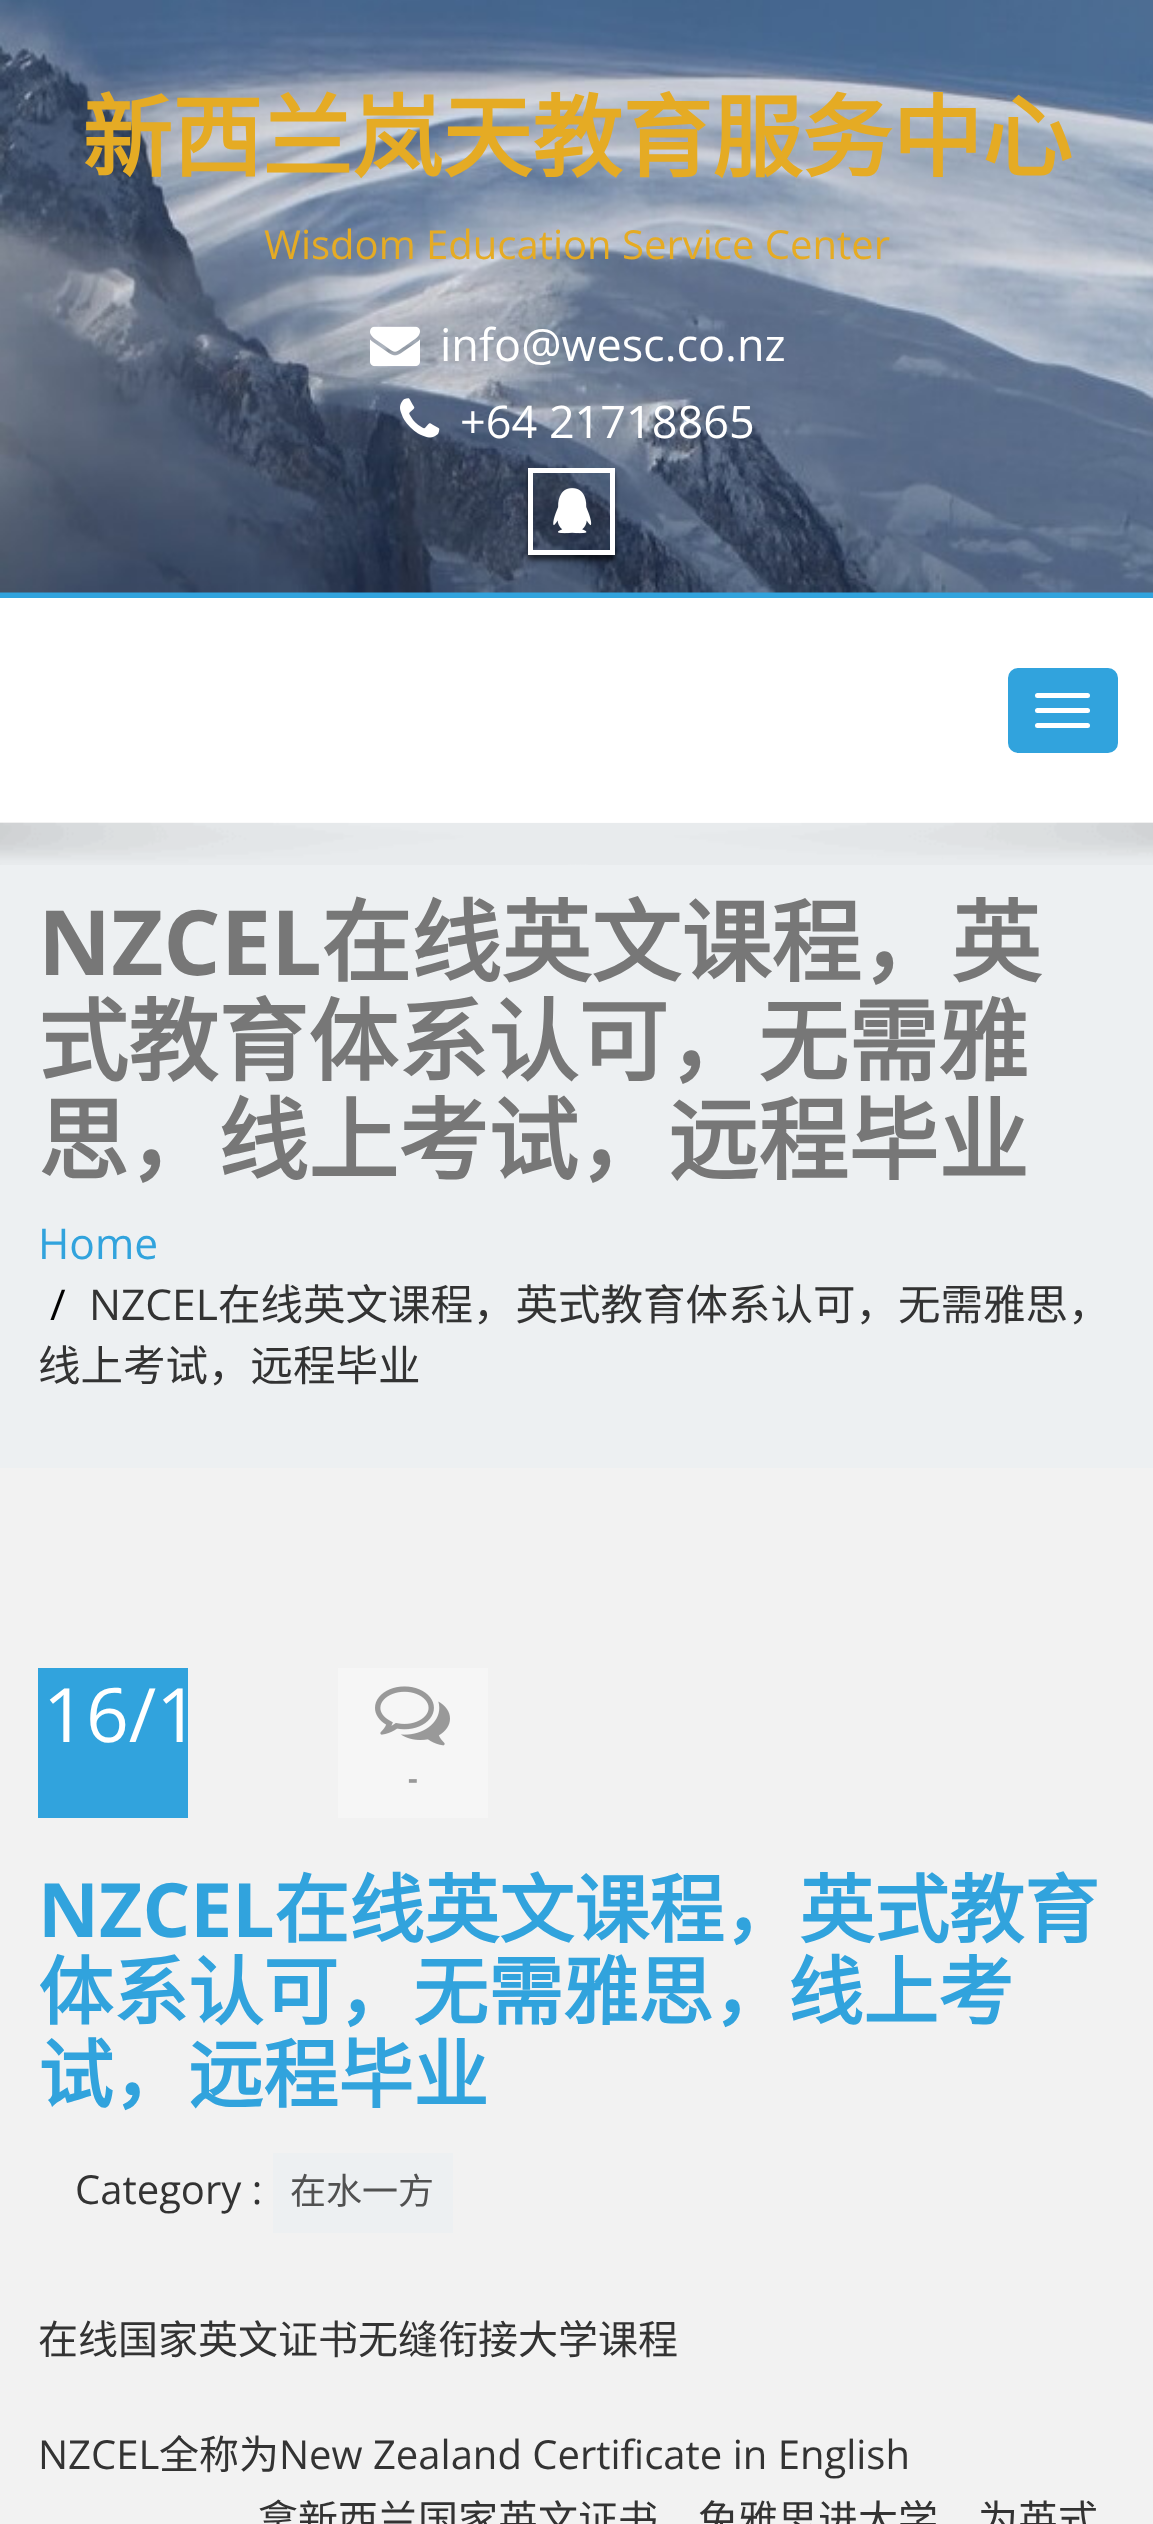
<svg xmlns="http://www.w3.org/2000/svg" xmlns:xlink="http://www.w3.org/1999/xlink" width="1153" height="2524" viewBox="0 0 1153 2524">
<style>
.cls-1{font:bold 90px Noto Sans CJK SC;fill:#e5ab24}
.cls-2{font:40px Open Sans;fill:#e5ab24}
.cls-3{font:45px Open Sans;fill:#ffffff}
.cls-4{font:bold 90px Open Sans;fill:#777777}
.cls-5{font:bold 90px Noto Sans CJK SC;fill:#777777}
.cls-6{font:42.5px Open Sans;fill:#31a3dd}
.cls-7{font:42.5px Open Sans;fill:#000000}
.cls-8{font:42.5px Open Sans;fill:#333333}
.cls-9{font:42.5px Noto Sans CJK SC;fill:#333333}
.cls-10{font:75px Open Sans;fill:#ffffff}
.cls-11{font:bold 30px Open Sans;fill:#999999}
.cls-12{font:bold 75px Open Sans;fill:#31a3dd}
.cls-13{font:bold 75px Noto Sans CJK SC;fill:#31a3dd}
.cls-14{font:40px Open Sans;fill:#333333}
.cls-15{font:36px Noto Sans CJK SC;fill:#515151}
.cls-16{font:40px Noto Sans CJK SC;fill:#333333}
</style>
<defs>
<clipPath id="clip1"><path d="M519 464H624V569H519ZM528 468H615V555H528Z" clip-rule="evenodd"/></clipPath>
</defs>
<rect width="100%" height="100%" fill="#f2f2f2"/>
<rect fill="#31a3dd" x="0" y="592" width="1153" height="6"/>
<image xlink:href="image0.png" x="0" y="0" width="1153" height="593"/>
<image xlink:href="image1.png" x="370" y="326" width="50" height="41"/>
<image xlink:href="image2.png" x="400" y="398" width="40" height="40"/>
<g clip-path="url(#clip1)">
<rect fill="#000000" fill-opacity="0.6" filter="blur(2.5px)" x="528" y="473" width="87" height="87"/>
</g>
<rect fill="none" stroke="#ffffff" stroke-width="5" x="530.5" y="470.5" width="82" height="82"/>
<image xlink:href="image3.png" x="553" y="488" width="39" height="46"/>
<rect fill="#ffffff" x="0" y="598" width="1153" height="225"/>
<rect fill="#31a3dd" stroke="#31a3dd" stroke-width="3" x="1009.5" y="669.5" width="107" height="82" rx="8.5"/>
<rect fill="#ffffff" x="1035" y="693" width="55" height="5" rx="2.5"/>
<rect fill="#ffffff" x="1035" y="708" width="55" height="5" rx="2.5"/>
<rect fill="#ffffff" x="1035" y="723" width="55" height="5" rx="2.5"/>
<rect fill="#edf0f2" x="0" y="823" width="1153" height="645"/>
<image xlink:href="image4.png" x="0" y="822" width="1153" height="43"/>
<rect fill="#31a3dd" x="38" y="1668" width="150" height="150"/>
<rect fill="#f6f6f6" x="338" y="1668" width="150" height="150"/>
<image xlink:href="image5.png" x="375" y="1686" width="75" height="60"/>
<rect fill="#edf0f2" x="273" y="2153" width="180" height="80"/>
<text class="cls-1" x="82" y="170">新西兰岚天教育服务中心</text>
<text class="cls-2" x="264" y="259">Wisdom Education Service Center</text>
<text class="cls-3" x="440" y="361">info@wesc.co.nz</text>
<text class="cls-3" x="460" y="438">+64 21718865</text>
<text class="cls-4" x="38" y="975">NZCEL</text>
<text class="cls-5" x="321" y="975">在线英文课程，英</text>
<text class="cls-5"><tspan x="38" y="1074">式教育体系认可，无需雅</tspan><tspan x="38" y="1173">思，线上考试，远程毕业</tspan></text>
<text class="cls-6" x="38" y="1259">Home</text>
<text class="cls-7" x="50" y="1320">/</text>
<text class="cls-8" x="89" y="1320">NZCEL</text>
<text class="cls-9" x="218" y="1320">在线英文课程，英式教育体系认可，无需雅思，</text>
<text class="cls-9" x="38" y="1381">线上考试，远程毕业</text>
<text class="cls-10" x="43" y="1742">16/1</text>
<text class="cls-11" x="408" y="1789">-</text>
<text class="cls-12" x="38" y="1937">NZCEL</text>
<text class="cls-13" x="274" y="1937">在线英文课程，英式教育</text>
<text class="cls-13"><tspan x="38" y="2019">体系认可，无需雅思，线上考</tspan><tspan x="38" y="2102">试，远程毕业</tspan></text>
<text class="cls-14" x="75" y="2204">Category :</text>
<text class="cls-15" x="290" y="2204">在水一方</text>
<text class="cls-16" x="38" y="2354">在线国家英文证书无缝衔接大学课程</text>
<text class="cls-14" x="38" y="2469">NZCEL</text>
<text class="cls-16" x="159" y="2469">全称为</text>
<text class="cls-14" x="279" y="2469">New Zealand Certificate in English</text>
<text class="cls-16" x="258" y="2534">拿新西兰国家英文证书，免雅思进大学。为英式</text>
</svg>
